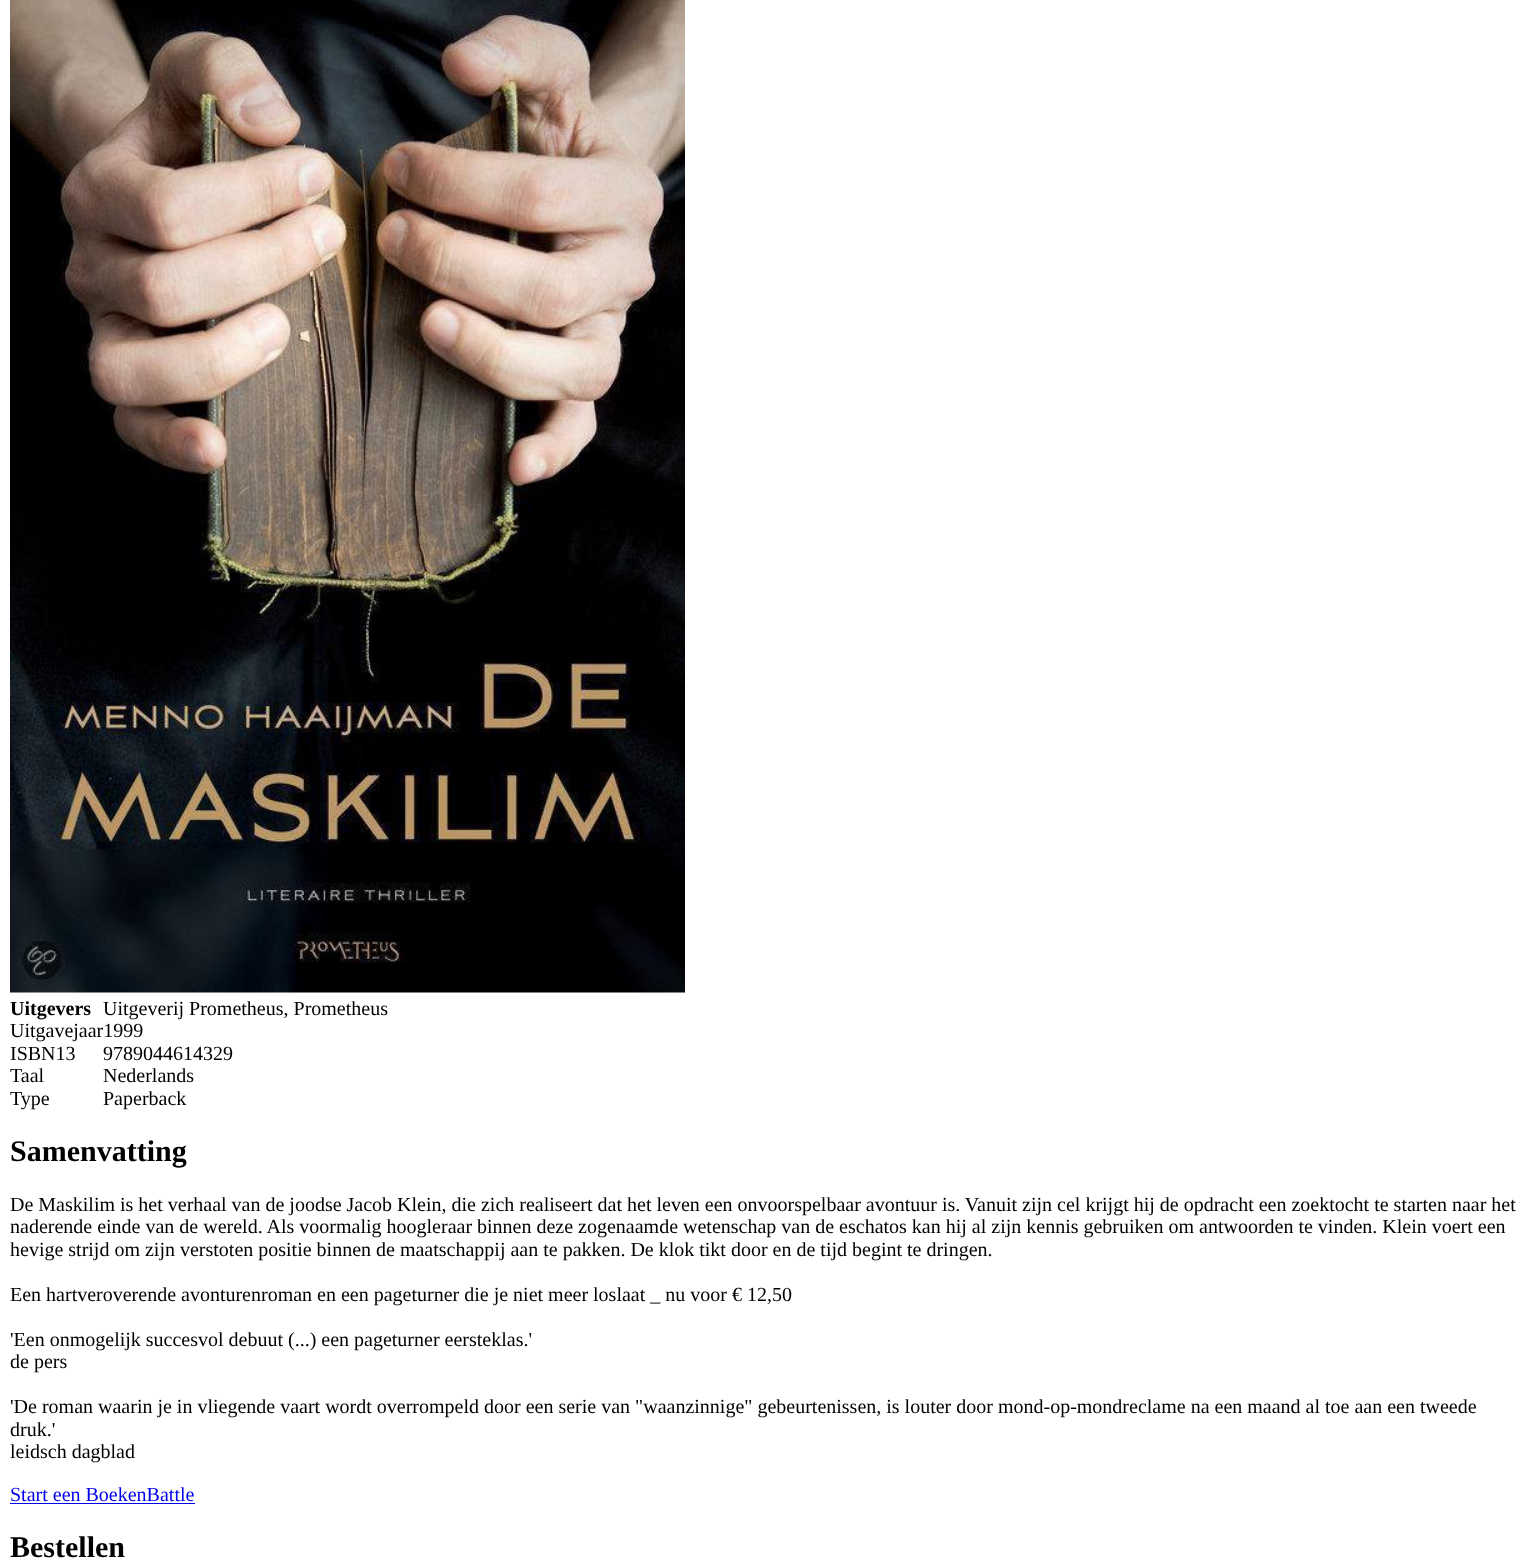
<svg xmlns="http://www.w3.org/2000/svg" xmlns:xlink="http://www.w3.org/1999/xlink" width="1530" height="1563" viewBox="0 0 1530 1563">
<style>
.cls-1{font:bold 20px Liberation Serif;fill:#000000}
.cls-2{font:20px Liberation Serif;fill:#000000}
.cls-3{font:bold 30px Liberation Serif;fill:#000000}
.cls-4{font:20px Liberation Serif;fill:#0000ee}
</style>
<rect width="100%" height="100%" fill="#ffffff"/>
<image xlink:href="image0.png" x="10" y="0" width="675" height="993"/>
<rect fill="#0000ee" x="10" y="1503" width="185" height="1"/>
<text class="cls-1" x="10" y="1015">Uitgevers</text>
<text class="cls-2" x="103" y="1015">Uitgeverij Prometheus, Prometheus</text>
<text class="cls-2"><tspan x="10" y="1037">Uitgavejaar1999</tspan><tspan x="10" y="1060">ISBN13</tspan></text>
<text class="cls-2" x="103" y="1060">9789044614329</text>
<text class="cls-2" x="10" y="1082">Taal</text>
<text class="cls-2" x="103" y="1082">Nederlands</text>
<text class="cls-2" x="10" y="1105">Type</text>
<text class="cls-2" x="103" y="1105">Paperback</text>
<text class="cls-3" x="10" y="1161">Samenvatting</text>
<text class="cls-2"><tspan x="10" y="1211">De Maskilim is het verhaal van de joodse Jacob Klein, die zich realiseert dat het leven een onvoorspelbaar avontuur is. Vanuit zijn cel krijgt hij de opdracht een zoektocht te starten naar het</tspan><tspan x="10" y="1233">naderende einde van de wereld. Als voormalig hoogleraar binnen deze zogenaamde wetenschap van de eschatos kan hij al zijn kennis gebruiken om antwoorden te vinden. Klein voert een</tspan><tspan x="10" y="1256">hevige strijd om zijn verstoten positie binnen de maatschappij aan te pakken. De klok tikt door en de tijd begint te dringen.</tspan></text>
<text class="cls-2" x="10" y="1301">Een hartveroverende avonturenroman en een pageturner die je niet meer loslaat _ nu voor € 12,50</text>
<text class="cls-2"><tspan x="10" y="1346">'Een onmogelijk succesvol debuut (...) een pageturner eersteklas.'</tspan><tspan x="10" y="1368">de pers</tspan></text>
<text class="cls-2"><tspan x="10" y="1413">'De roman waarin je in vliegende vaart wordt overrompeld door een serie van "waanzinnige" gebeurtenissen, is louter door mond-op-mondreclame na een maand al toe aan een tweede</tspan><tspan x="10" y="1436">druk.'</tspan><tspan x="10" y="1458">leidsch dagblad</tspan></text>
<text class="cls-4" x="10" y="1501">Start een BoekenBattle</text>
<text class="cls-3" x="10" y="1557">Bestellen</text>
</svg>
